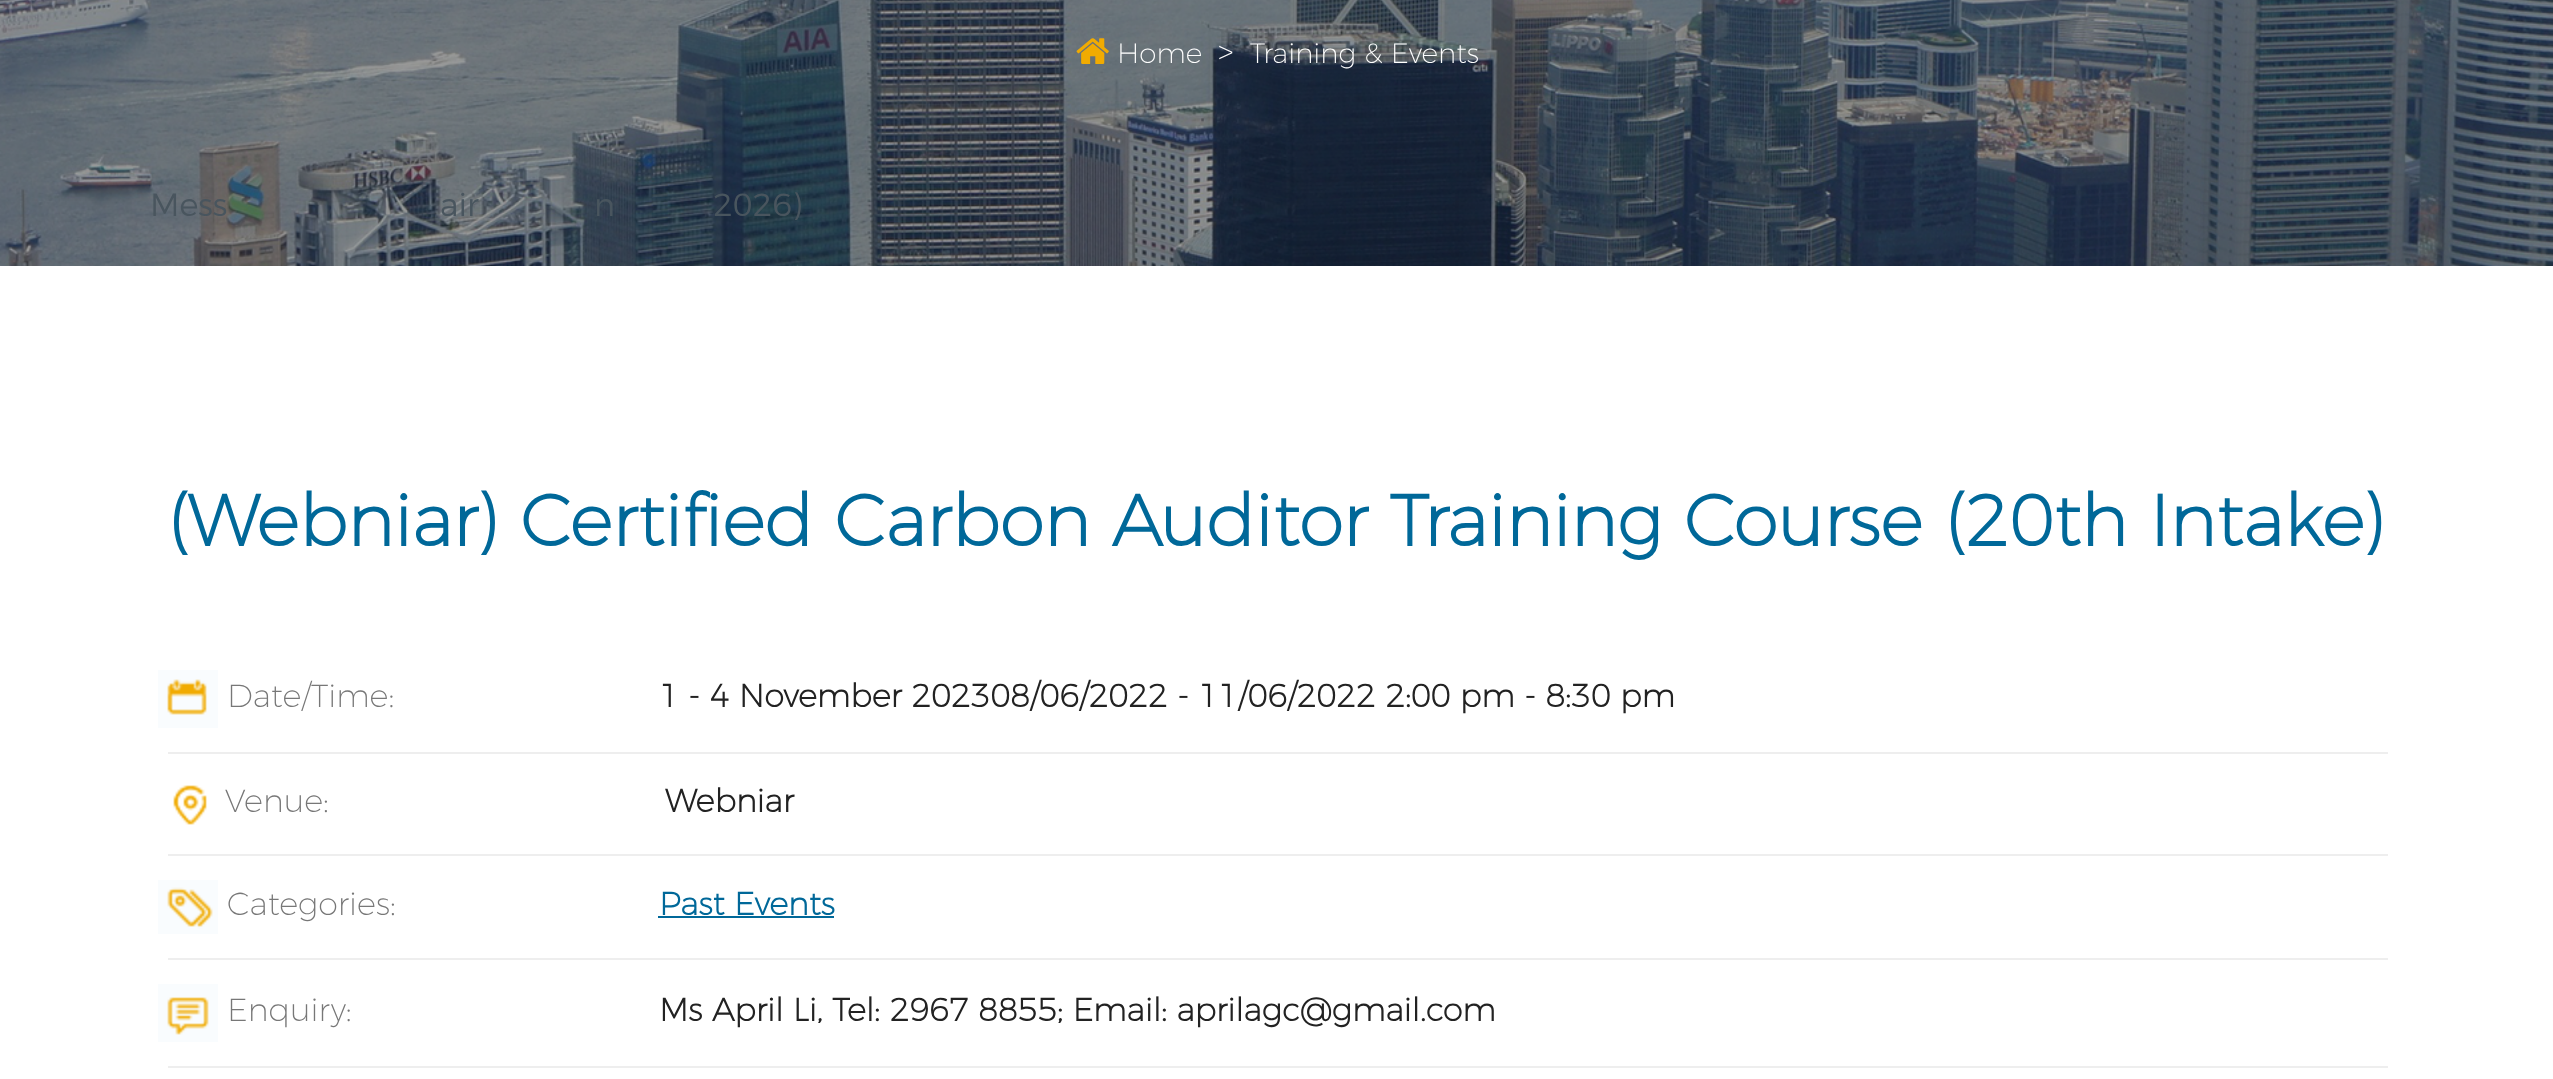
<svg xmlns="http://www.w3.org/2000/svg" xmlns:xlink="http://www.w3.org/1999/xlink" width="2553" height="1079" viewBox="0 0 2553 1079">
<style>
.cls-1{font:200 28px Montserrat;fill:#ffffff}
.cls-2{font:200 32px Montserrat;fill:#ffffff}
.cls-3{font:bold 72px Montserrat;fill:#006899}
.cls-4{font:200 32px Montserrat;fill:#777777}
.cls-5{font:bold 32px Montserrat;fill:#222222}
.cls-6{font:bold 32px Montserrat;fill:#006899}
.cls-7{font:300 32px Montserrat;fill:#49555e}
</style>
<rect width="100%" height="100%" fill="#ffffff"/>
<image xlink:href="image0.png" x="0" y="0" width="2553" height="266"/>
<image xlink:href="image1.png" x="1076" y="38" width="33" height="26"/>
<image xlink:href="image2.png" x="158" y="670" width="60" height="58"/>
<rect fill="#eeeeee" x="168" y="752" width="2220" height="2"/>
<image xlink:href="image3.png" x="173" y="785" width="34" height="40"/>
<rect fill="#eeeeee" x="168" y="854" width="2220" height="2"/>
<image xlink:href="image4.png" x="158" y="880" width="60" height="54"/>
<rect fill="#006899" x="658" y="916" width="176" height="2"/>
<rect fill="#eeeeee" x="168" y="958" width="2220" height="2"/>
<image xlink:href="image5.png" x="158" y="984" width="60" height="58"/>
<rect fill="#eeeeee" x="168" y="1066" width="2220" height="2"/>
<text class="cls-1" x="1117" y="63">Home</text>
<text class="cls-2" x="1218" y="63">&gt;</text>
<text class="cls-1" x="1250" y="63">Training &amp; Events</text>
<text class="cls-3" x="167" y="546">(Webniar) Certified Carbon Auditor Training Course (20th Intake)</text>
<text class="cls-4" x="227" y="707">Date/Time:</text>
<text class="cls-5" x="659" y="707">1 - 4 November 202308/06/2022 - 11/06/2022 2:00 pm - 8:30 pm</text>
<text class="cls-4" x="225" y="812">Venue:</text>
<text class="cls-5" x="665" y="812">Webniar</text>
<text class="cls-4" x="227" y="915">Categories:</text>
<text class="cls-6" x="659" y="915">Past Events</text>
<text class="cls-4" x="227" y="1021">Enquiry:</text>
<text class="cls-5" x="659" y="1021">Ms April Li, Tel: 2967 8855; Email: aprilagc@gmail.com</text>
<text class="cls-7" x="150" y="216">Mess</text>
<text class="cls-7" x="440" y="216">air</text>
<text class="cls-7" x="594" y="216">n</text>
<text class="cls-7" x="713" y="216">2026)</text>
</svg>
